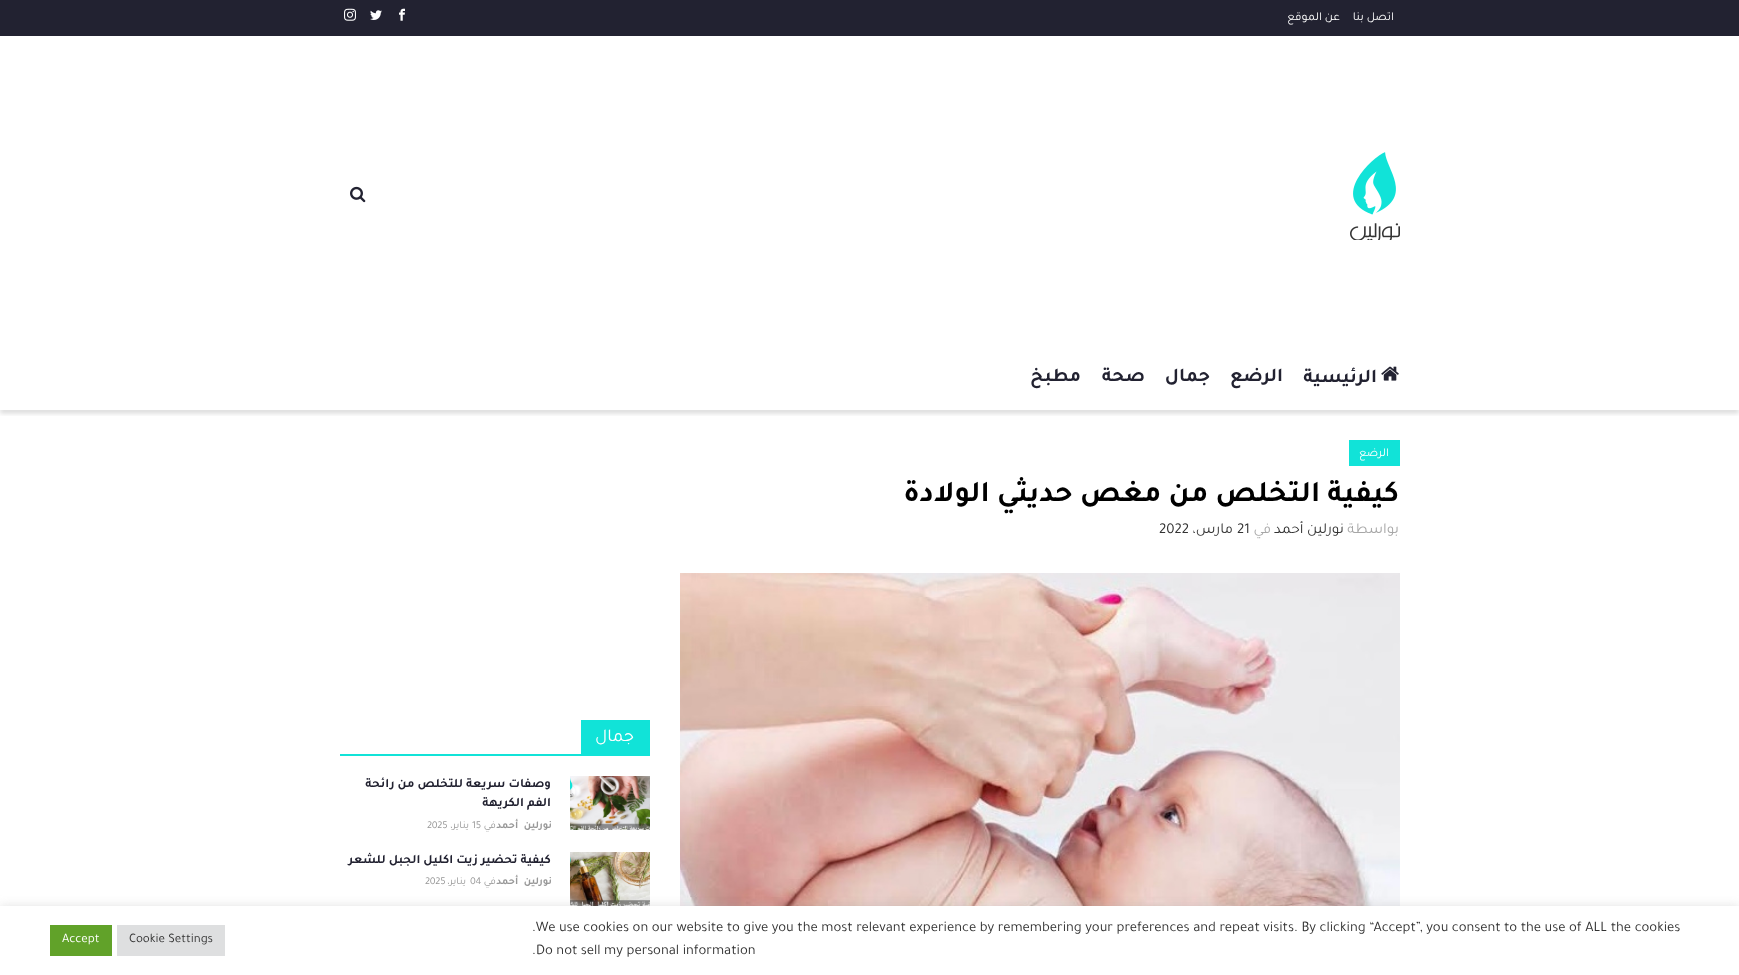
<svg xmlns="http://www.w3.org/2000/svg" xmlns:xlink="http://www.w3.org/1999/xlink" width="1739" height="975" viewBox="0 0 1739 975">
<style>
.cls-1{font:12px Tajawal;direction:rtl;fill:#ffffff}
.cls-2{font:bold 19.5px Tajawal;direction:rtl;fill:#222231}
.cls-3{font:bold 30px Tajawal;direction:rtl;fill:#000000}
.cls-4{font:15px Tajawal;fill:#333333}
.cls-5{font:15px Tajawal;direction:rtl;fill:#333333}
.cls-6{font:15px Tajawal;direction:rtl;fill:#a7a7a7}
.cls-7{font:18px Tajawal;direction:rtl;fill:#ffffff}
.cls-8{font:bold 12.75px Tajawal;direction:rtl;fill:#222231}
.cls-9{font:10.5px Tajawal;letter-spacing:-0.25px;fill:#989898}
.cls-10{font:10.5px Tajawal;letter-spacing:-0.25px;direction:rtl;fill:#989898}
.cls-11{font:bold 10.5px Tajawal;letter-spacing:-0.25px;direction:rtl;fill:#989898}
.cls-12{font:13px Tajawal;fill:#ffffff}
.cls-13{font:13px Tajawal;fill:#333333}
.cls-14{font:14.67px Tajawal;fill:#333333}
</style>
<defs>
<clipPath id="clip1"><rect x="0" y="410" width="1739" height="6"/></clipPath>
</defs>
<rect width="100%" height="100%" fill="#ffffff"/>
<rect fill="#222231" x="0" y="0" width="1739" height="36"/>
<image xlink:href="image0.png" x="344" y="8" width="12" height="13"/>
<image xlink:href="image1.png" x="370" y="10" width="12" height="10"/>
<image xlink:href="image2.png" x="399" y="8" width="6" height="13"/>
<image xlink:href="image3.png" x="350" y="186" width="16" height="17"/>
<image xlink:href="image4.png" x="1350" y="152" width="50" height="88"/>
<image xlink:href="image5.png" x="1381" y="366" width="18" height="15"/>
<g clip-path="url(#clip1)">
<rect fill="#000000" fill-opacity="0.17" filter="blur(2.5px)" x="0" y="408" width="1739" height="5"/>
</g>
<rect fill="#11e3d8" x="1349" y="440" width="51" height="26"/>
<image xlink:href="image6.png" x="680" y="573" width="720" height="333"/>
<rect fill="#11e3d8" x="340" y="754" width="310" height="2"/>
<rect fill="#11e3d8" x="581" y="720" width="69" height="34"/>
<image xlink:href="image7.png" x="570" y="776" width="80" height="54"/>
<image xlink:href="image8.png" x="570" y="852" width="80" height="54"/>
<rect fill="#acabab" fill-opacity="0.3" filter="blur(5px)" x="0" y="905" width="1739" height="69"/>
<rect fill="#ffffff" x="0" y="906" width="1739" height="69"/>
<rect fill="#61a229" x="50" y="925" width="62" height="31"/>
<rect fill="#dedfe0" x="117" y="925" width="108" height="31"/>
<text class="cls-1" x="1340" y="20">عن الموقع</text>
<text class="cls-1" x="1394" y="20">اتصل بنا</text>
<text class="cls-2" x="1081" y="381">مطبخ</text>
<text class="cls-2" x="1145" y="381">صحة</text>
<text class="cls-2" x="1210" y="381">جمال</text>
<text class="cls-2" x="1283" y="381">الرضع</text>
<text class="cls-2" x="1377" y="382">الرئيسية</text>
<text class="cls-1" x="1389" y="456">الرضع</text>
<text class="cls-3" x="1399" y="501">كيفية التخلص من مغص حديثي الولادة</text>
<text class="cls-4" x="1159" y="533">2022</text>
<text class="cls-5" x="1233" y="533">مارس،</text>
<text class="cls-4" x="1237" y="533">21</text>
<text class="cls-6" x="1271" y="533">في</text>
<text class="cls-5" x="1344" y="533">نورلين أحمد</text>
<text class="cls-6" x="1399" y="533">بواسطة</text>
<text class="cls-7" x="634" y="741">جمال</text>
<text class="cls-8"><tspan x="551" y="787">وصفات سريعة للتخلص من رائحة</tspan><tspan x="551" y="806">الفم الكريهة</tspan></text>
<text class="cls-9" x="427" y="828">2025</text>
<text class="cls-10" x="469" y="828">يناير،</text>
<text class="cls-9" x="472" y="828">15</text>
<text class="cls-10" x="496" y="828">في</text>
<text class="cls-11" x="552" y="828" word-spacing="3">نورلين أحمد</text>
<text class="cls-8" x="551" y="863">كيفية تحضير زيت اكليل الجبل للشعر</text>
<text class="cls-9" x="425" y="884">2025</text>
<text class="cls-10" x="466" y="884">يناير،</text>
<text class="cls-9" x="470" y="884">04</text>
<text class="cls-10" x="496" y="884">في</text>
<text class="cls-11" x="552" y="884" word-spacing="3">نورلين أحمد</text>
<text class="cls-12" x="62" y="942">Accept</text>
<text class="cls-13" x="129" y="942">Cookie Settings</text>
<text class="cls-14"><tspan x="532" y="931">.We use cookies on our website to give you the most relevant experience by remembering your preferences and repeat visits. By clicking “Accept”, you consent to the use of ALL the cookies</tspan><tspan x="532" y="954">.</tspan></text>
<text class="cls-14" x="536" y="954">Do not sell my personal information</text>
</svg>
